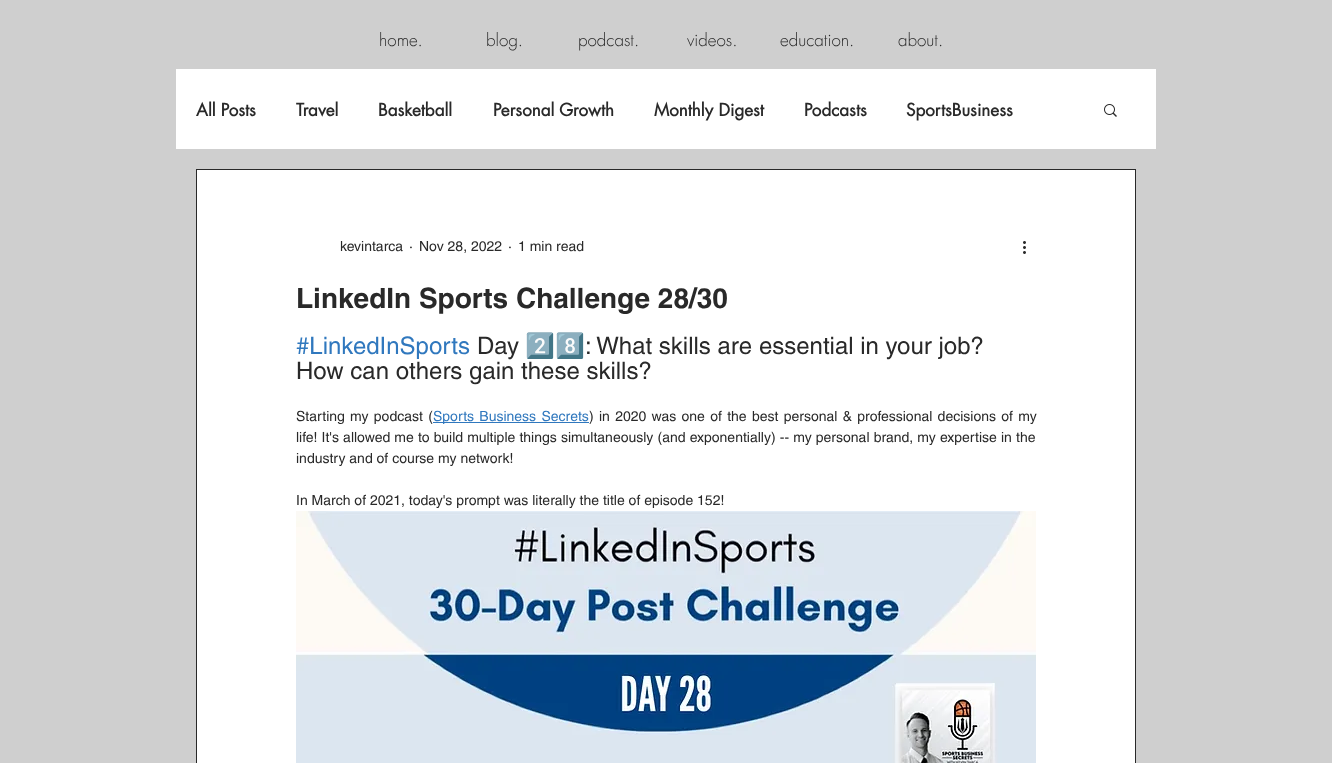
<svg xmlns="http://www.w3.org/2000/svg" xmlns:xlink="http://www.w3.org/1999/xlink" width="1332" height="763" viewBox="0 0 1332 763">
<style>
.cls-1{font:300 17px futura;fill:#292929}
.cls-2{font:bold 17px futura;fill:#292929}
.cls-3{font:14px helvetica;fill:#292929}
.cls-4{font:bold 28px helvetica;fill:#292929}
.cls-5{font:24px helvetica;fill:#3078be}
.cls-6{font:24px helvetica;fill:#292929}
.cls-7{font:24px Noto Color Emoji;fill:#292929}
.cls-8{font:14px helvetica;fill:#3078be}
</style>
<rect width="100%" height="100%" fill="#cfcfcf"/>
<rect fill="#ffffff" x="176" y="69" width="980" height="80"/>
<image xlink:href="image0.png" x="1104" y="104" width="13" height="13"/>
<rect fill="#ffffff" stroke="#292929" x="196.5" y="169.5" width="939" height="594"/>
<image xlink:href="image1.png" x="1023" y="241" width="3" height="13"/>
<rect fill="#3078be" x="433" y="422" width="156" height="1"/>
<image xlink:href="image2.png" x="296" y="511" width="740" height="252"/>
<text class="cls-1" x="379" y="46">home.</text>
<text class="cls-1" x="486" y="46">blog.</text>
<text class="cls-1" x="578" y="46">podcast.</text>
<text class="cls-1" x="687" y="46">videos.</text>
<text class="cls-1" x="780" y="46">education.</text>
<text class="cls-1" x="898" y="46">about.</text>
<text class="cls-2" x="196" y="116">All Posts</text>
<text class="cls-2" x="296" y="116">Travel</text>
<text class="cls-2" x="378" y="116">Basketball</text>
<text class="cls-2" x="493" y="116">Personal Growth</text>
<text class="cls-2" x="654" y="116">Monthly Digest</text>
<text class="cls-2" x="804" y="116">Podcasts</text>
<text class="cls-2" x="906" y="116">SportsBusiness</text>
<text class="cls-3" x="340" y="251">kevintarca</text>
<text class="cls-3" x="409" y="251">·</text>
<text class="cls-3" x="419" y="251">Nov 28, 2022</text>
<text class="cls-3" x="508" y="251">·</text>
<text class="cls-3" x="518" y="251">1 min read</text>
<text class="cls-4" x="296" y="308">LinkedIn Sports Challenge 28/30</text>
<text class="cls-5" x="296" y="354">#LinkedInSports</text>
<text class="cls-6" x="477" y="354">Day</text>
<text class="cls-7" x="525" y="354">2️⃣8️⃣</text>
<text class="cls-6" x="585" y="354">: What skills are essential in your job?</text>
<text class="cls-6" x="296" y="379">How can others gain these skills?</text>
<text class="cls-3" x="296" y="421" word-spacing="1.4">Starting my podcast (</text>
<text class="cls-8" x="433" y="421" word-spacing="1.4">Sports Business Secrets</text>
<text class="cls-3" x="589" y="421" word-spacing="1.4">) in 2020 was one of the best personal &amp; professional decisions of my</text>
<text class="cls-3"><tspan x="296" y="442" word-spacing="0.25">life! It's allowed me to build multiple things simultaneously (and exponentially) -- my personal brand, my expertise in the</tspan><tspan x="296" y="463">industry and of course my network!</tspan></text>
<text class="cls-3" x="296" y="505">In March of 2021, today's prompt was literally the title of episode 152!</text>
</svg>
